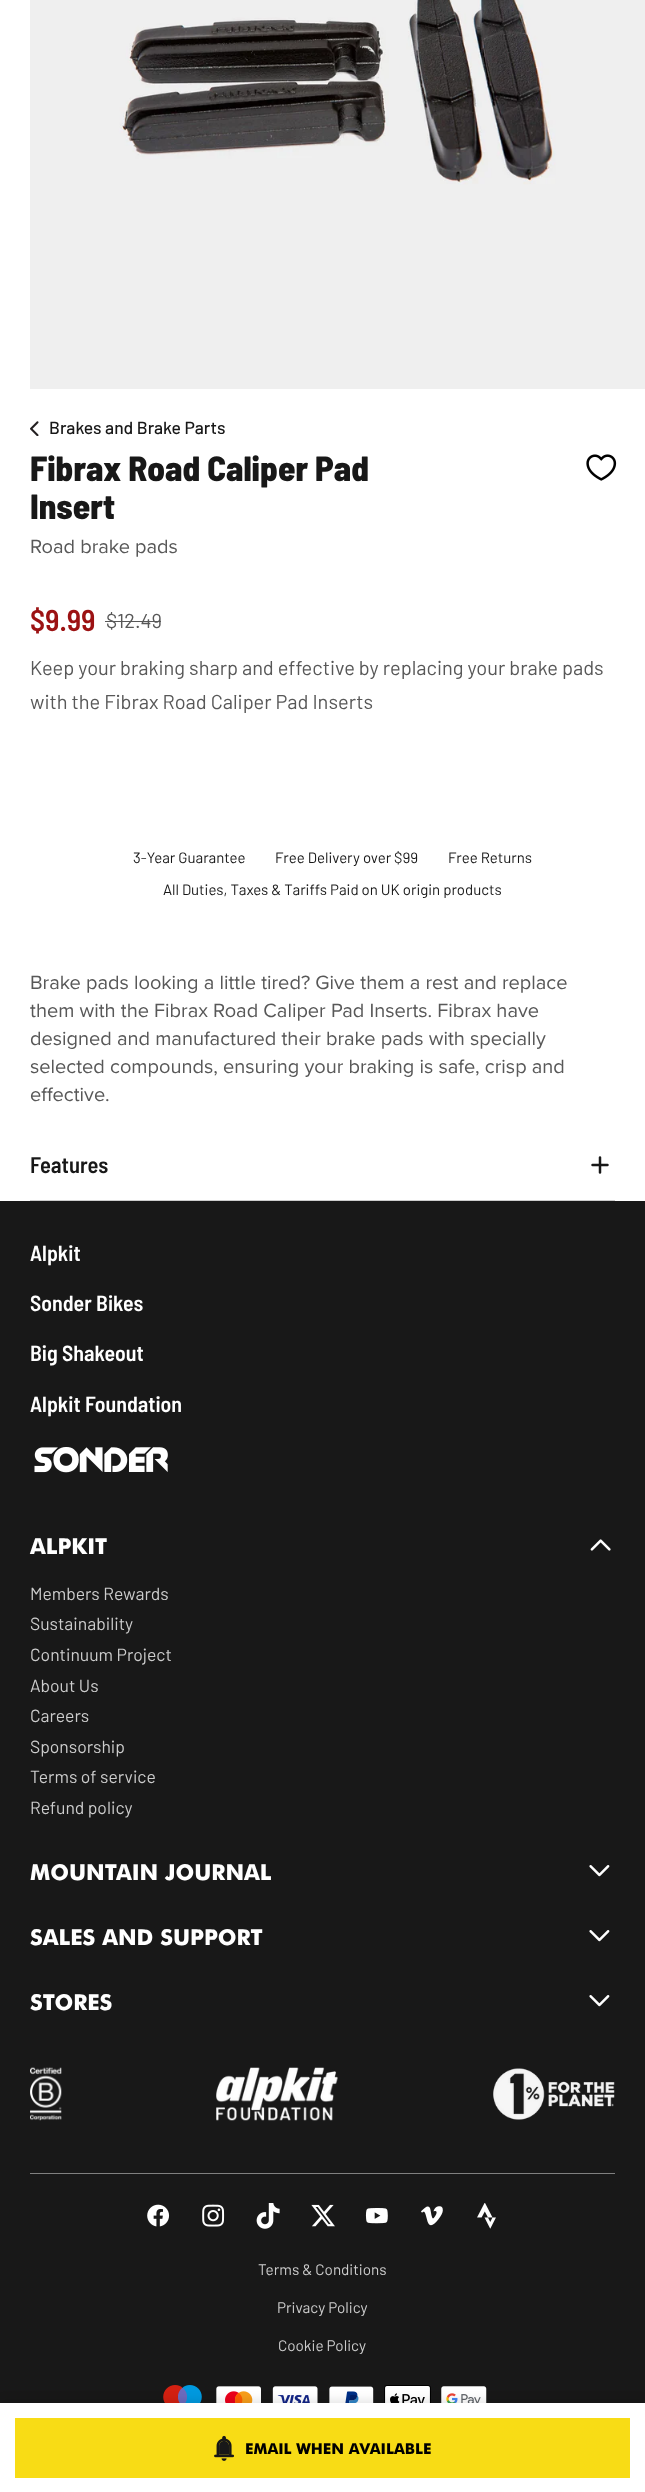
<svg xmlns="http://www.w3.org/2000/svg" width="645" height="2492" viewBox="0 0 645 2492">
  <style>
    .t1 { font: 500 17.5px Barlow; fill: #181818; }
    .t2 { font: 800 35px Barlow Semi Condensed; fill: #181818; }
    .t3 { font: 20px Proxima Nova; fill: #585858; }
    .t4 { font: 600 30px Barlow Semi Condensed; fill: #9c1213; }
    .t5 { font: 20px Barlow; fill: #585858; }
    .t6 { font: 15px Barlow; fill: #181818; }
    .t7 { font: 900 15px 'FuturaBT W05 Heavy'; fill: #000; }
    .t8 { font: 600 22.5px Barlow Semi Condensed; fill: #181818; }
    .t9 { font: 600 21.9px Barlow Semi Condensed; fill: #fff; }
    .t10 { font: 900 21.9px 'FuturaBT W05 Heavy'; fill: #fff; }
    .t11 { font: 17.5px Barlow; fill: #ccc; }
    .t12 { font: 15.25px Barlow; fill: #ccc; }
  </style>
  <rect width="100%" height="100%" fill="#fff"/>
  <image x="30" y="0" width="615" height="389" href="images/1.png"/>
  <image x="30" y="421" width="9" height="15" href="images/2.png"/>
  <text x="49" y="434" class="t1">Brakes and Brake Parts</text>
  <text x="30" y="481" class="t2">Fibrax Road Caliper Pad</text>
  <text x="30" y="519" class="t2">Insert</text>
  <image x="586" y="454" width="31" height="27" href="images/3.png"/>
  <text x="30" y="553" class="t3">Road brake pads</text>
  <text x="30" y="631" class="t4">$9.99</text>
  <text x="106" y="628" class="t5">$12.49</text>
  <rect x="105" y="621" width="56" height="1" fill="#585858"/>
  <text x="30" y="675" class="t5">Keep your braking sharp and effective by replacing your brake pads</text>
  <text x="30" y="709" class="t5">with the Fibrax Road Caliper Pad Inserts</text>
  <text x="133" y="863" class="t6">3-Year Guarantee</text>
  <text x="275" y="863" class="t6">Free Delivery over $99</text>
  <text x="448" y="863" class="t6">Free Returns</text>
  <text x="163" y="895" class="t6">All Duties, Taxes &amp; Tariffs Paid on UK origin products</text>
  <rect x="0" y="1201" width="645" height="1202" fill="#181818"/>
  <image x="163" y="2385" width="39" height="18" href="images/19.png"/>
  <image x="216" y="2386" width="45" height="17" href="images/20.png"/>
  <image x="272" y="2386" width="46" height="17" href="images/21.png"/>
  <image x="329" y="2386" width="45" height="17" href="images/22.png"/>
  <image x="384" y="2385" width="47" height="18" href="images/23.png"/>
  <image x="441" y="2386" width="46" height="17" href="images/24.png"/>
  <rect x="0" y="2400" width="645" height="90" fill="#0000001a" filter="blur(5px)"/>
  <rect x="0" y="2403" width="645" height="89" fill="#fff"/>
  <rect x="15" y="2418" width="615" height="60" fill="#f8dc15"/>
  <image x="214" y="2435" width="20" height="26" href="images/4.png"/>
  <text x="245" y="2454" class="t7">EMAIL WHEN AVAILABLE</text>
  <text x="30" y="989" class="t3">Brake pads looking a little tired? Give them a rest and replace</text>
  <text x="30" y="1017" class="t3">them with the Fibrax Road Caliper Pad Inserts. Fibrax have</text>
  <text x="30" y="1045" class="t3">designed and manufactured their brake pads with specially</text>
  <text x="30" y="1073" class="t3">selected compounds, ensuring your braking is safe, crisp and</text>
  <text x="30" y="1101" class="t3">effective.</text>
  <rect x="30" y="1200" width="585" height="1" fill="#ccc"/>
  <text x="30" y="1173" class="t8">Features</text>
  <image x="591" y="1156" width="18" height="18" href="images/5.png"/>
  <text x="30" y="1261" class="t9">Alpkit</text>
  <text x="30" y="1311" class="t9">Sonder Bikes</text>
  <text x="30" y="1361" class="t9">Big Shakeout</text>
  <text x="30" y="1412" class="t9">Alpkit Foundation</text>
  <image x="34" y="1447" width="134" height="26" href="images/6.png"/>
  <text x="30" y="1554" class="t10">ALPKIT</text>
  <image x="590" y="1539" width="21" height="12" href="images/7.png"/>
  <text x="30" y="1600" class="t11">Members Rewards</text>
  <text x="30" y="1630" class="t11">Sustainability</text>
  <text x="30" y="1661" class="t11">Continuum Project</text>
  <text x="30" y="1692" class="t11">About Us</text>
  <text x="30" y="1722" class="t11">Careers</text>
  <text x="30" y="1753" class="t11">Sponsorship</text>
  <text x="30" y="1783" class="t11">Terms of service</text>
  <text x="30" y="1814" class="t11">Refund policy</text>
  <text x="30" y="1880" class="t10">MOUNTAIN JOURNAL</text>
  <image x="589" y="1865" width="21" height="12" href="images/8.png"/>
  <text x="30" y="1945" class="t10">SALES AND SUPPORT</text>
  <image x="589" y="1930" width="21" height="12" href="images/8.png"/>
  <text x="30" y="2010" class="t10">STORES</text>
  <image x="589" y="1995" width="21" height="12" href="images/8.png"/>
  <image x="30" y="2067" width="32" height="54" href="images/9.png"/>
  <image x="216" y="2067" width="122" height="54" href="images/10.png"/>
  <image x="493" y="2068" width="122" height="52" href="images/11.png"/>
  <rect x="30" y="2173" width="585" height="1" fill="#808080"/>
  <image x="147" y="2204" width="23" height="23" href="images/12.png"/>
  <image x="202" y="2204" width="23" height="23" href="images/13.png"/>
  <image x="256" y="2203" width="24" height="26" href="images/14.png"/>
  <image x="311" y="2204" width="24" height="23" href="images/15.png"/>
  <image x="365" y="2208" width="23" height="16" href="images/16.png"/>
  <image x="421" y="2206" width="22" height="20" href="images/17.png"/>
  <image x="477" y="2203" width="19" height="26" href="images/18.png"/>
  <text x="258" y="2275" class="t12">Terms &amp; Conditions</text>
  <text x="277" y="2313" class="t12">Privacy Policy</text>
  <text x="278" y="2351" class="t12">Cookie Policy</text>
</svg>
